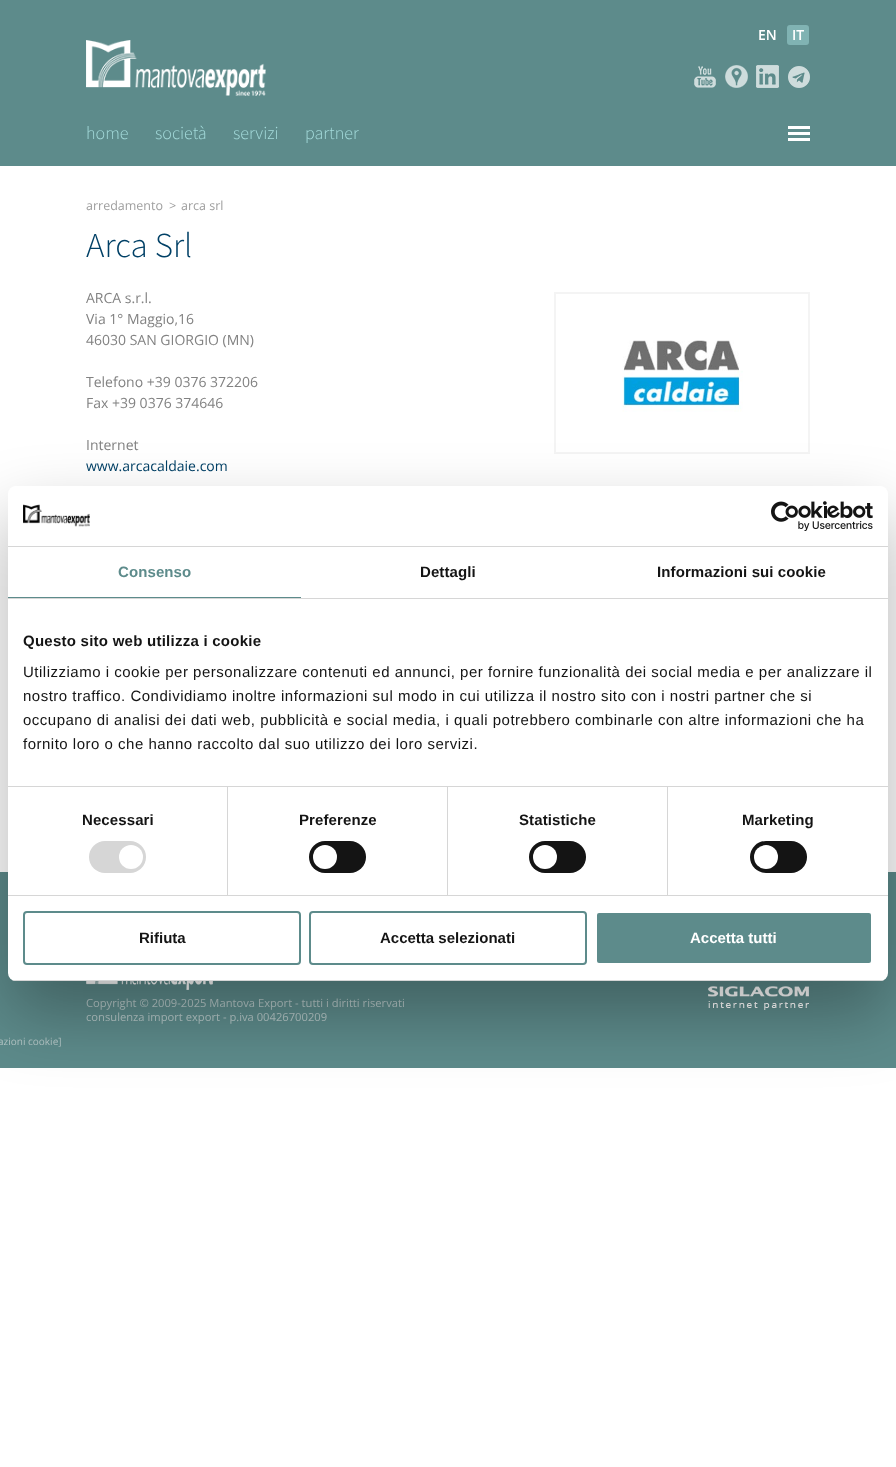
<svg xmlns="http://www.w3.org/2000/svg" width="896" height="1467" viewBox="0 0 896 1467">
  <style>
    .t1 { font: 600 14px Open Sans; fill: #fff; }
    .t2 { font: 300 18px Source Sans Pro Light; fill: #a5dcdc; }
    .t3 { font: 12.5px Open Sans; fill: #9f9f9f; }
    .t4 { font: 300 35px Source Sans Pro Light; fill: #004066; }
    .t5 { font: 14px Open Sans; fill: #828282; }
    .t6 { font: 14px Open Sans; fill: #004066; }
    .t7 { font: 11.2px Open Sans; fill: #b5c7c7; }
    .t8 { font: 10px Open Sans; fill: #b5c7c7; }
    .t9 { font: bold 15px Liberation Sans; letter-spacing: 0.1px; fill: #5d8b8b; }
    .t10 { font: bold 15px Liberation Sans; letter-spacing: 0.1px; fill: #141414; }
    .t11 { font: bold 15px Liberation Sans; letter-spacing: 0.25px; fill: #141414; }
    .t12 { font: 15px Liberation Sans; letter-spacing: 0.5px; fill: #141414; }
    .t13 { font: bold 15px Liberation Sans; fill: #141414; }
    .t14 { font: bold 15px Liberation Sans; fill: #fff; }
  </style>
  <defs>
    <clipPath id="clip1"><rect x="8" y="486" width="880" height="495" rx="8"/></clipPath>
  </defs>
  <rect width="100%" height="100%" fill="#fff"/>
  <rect x="0" y="0" width="896" height="166" fill="#5d8b8b"/>
  <text x="758" y="40" class="t1">EN</text>
  <rect x="787" y="25" width="22" height="20" rx="3" fill="#80b3b3"/>
  <text x="792" y="40" class="t1">IT</text>
  <image x="86" y="40" width="180" height="56" href="images/1.png"/>
  <image x="694" y="66" width="22" height="22" href="images/2.png"/>
  <image x="725" y="65" width="23" height="23" href="images/3.png"/>
  <image x="756" y="65" width="23" height="23" href="images/4.png"/>
  <image x="788" y="66" width="22" height="22" href="images/5.png"/>
  <text x="86" y="139" class="t2">home</text>
  <text x="155" y="139" class="t2">società</text>
  <text x="233" y="139" class="t2">servizi</text>
  <text x="305" y="139" class="t2">partner</text>
  <rect x="788" y="126" width="22" height="3" fill="#fff"/>
  <rect x="788" y="132" width="22" height="3" fill="#fff"/>
  <rect x="788" y="138" width="22" height="3" fill="#fff"/>
  <text x="86" y="210" class="t3">arredamento</text>
  <text x="169" y="210" class="t3">&gt;</text>
  <text x="181" y="210" class="t3">arca srl</text>
  <text x="86" y="257" class="t4">Arca Srl</text>
  <text x="86" y="303" class="t5">ARCA s.r.l.</text>
  <rect x="555" y="293" width="254" height="160" fill="none" stroke="#f4f4f4" stroke-width="2"/>
  <image x="622" y="340" width="121" height="72" href="images/6.png"/>
  <text x="86" y="324" class="t5">Via 1° Maggio,16</text>
  <text x="86" y="345" class="t5">46030 SAN GIORGIO (MN)</text>
  <text x="86" y="387" class="t5">Telefono +39 0376 372206</text>
  <text x="86" y="408" class="t5">Fax +39 0376 374646</text>
  <text x="86" y="450" class="t5">Internet</text>
  <text x="86" y="471" class="t6">www.arcacaldaie.com</text>
  <rect x="0" y="872" width="896" height="196" fill="#5d8b8b"/>
  <image x="86" y="981" width="127" height="9" href="images/7.png"/>
  <image x="708" y="986" width="101" height="24" href="images/8.png"/>
  <text x="86" y="1007" class="t7">Copyright © 2009-2025 Mantova Export - tutti i diritti riservati</text>
  <text x="86" y="1021" class="t7">consulenza import export - p.iva 00426700209</text>
  <text x="-2" y="1045" class="t8">azioni cookie]</text>
  <rect x="8" y="518" width="880" height="495" rx="8" fill="#0000004d" filter="blur(34px)"/>
  <rect x="8" y="486" width="880" height="495" rx="8" fill="#fff"/>
  <rect x="8" y="546" width="880" height="1" fill="#d6d6d6"/>
  <image x="23" y="504" width="67" height="23" href="images/9.png"/>
  <image x="771" y="501" width="102" height="30" href="images/10.png"/>
  <rect x="8" y="598" width="880" height="1" fill="#d6d6d6"/>
  <rect x="8" y="597" width="293" height="1" fill="#5d8b8b"/>
  <text x="118" y="577" class="t9">Consenso</text>
  <text x="420" y="577" class="t10">Dettagli</text>
  <text x="657" y="577" class="t10">Informazioni sui cookie</text>
  <rect x="8" y="786" width="880" height="1" fill="#d6d6d6"/>
  <text x="23" y="646" class="t11">Questo sito web utilizza i cookie</text>
  <text x="23" y="677" class="t12">Utilizziamo i cookie per personalizzare contenuti ed annunci, per fornire funzionalità dei social media e per analizzare il</text>
  <text x="23" y="701" class="t12">nostro traffico. Condividiamo inoltre informazioni sul modo in cui utilizza il nostro sito con i nostri partner che si</text>
  <text x="23" y="725" class="t12">occupano di analisi dei dati web, pubblicità e social media, i quali potrebbero combinarle con altre informazioni che ha</text>
  <text x="23" y="749" class="t12">fornito loro o che hanno raccolto dal suo utilizzo dei loro servizi.</text>
  <rect x="8" y="895" width="880" height="1" fill="#d6d6d6"/>
  <rect x="227" y="787" width="1" height="108" fill="#d6d6d6"/>
  <text x="82" y="825" class="t10">Necessari</text>
  <rect x="89" y="841" width="57" height="32" rx="16" fill="#d6d6d6"/>
  <circle cx="131" cy="857" r="12" fill="#fff"/>
  <rect x="447" y="787" width="1" height="108" fill="#d6d6d6"/>
  <text x="299" y="825" class="t10">Preferenze</text>
  <rect x="309" y="841" width="57" height="32" rx="16" fill="#141414"/>
  <circle cx="325" cy="857" r="12" fill="#fff"/>
  <rect x="667" y="787" width="1" height="108" fill="#d6d6d6"/>
  <text x="519" y="825" class="t10">Statistiche</text>
  <rect x="529" y="841" width="57" height="32" rx="16" fill="#141414"/>
  <circle cx="545" cy="857" r="12" fill="#fff"/>
  <text x="742" y="825" class="t10">Marketing</text>
  <rect x="750" y="841" width="57" height="32" rx="16" fill="#141414"/>
  <circle cx="766" cy="857" r="12" fill="#fff"/>
  <g clip-path="url(#clip1)">
    <rect x="8" y="980" width="880" height="1" fill="#d6d6d6"/>
  </g>
  <rect x="24" y="912" width="276" height="52" rx="3" fill="none" stroke="#5d8b8b" stroke-width="2"/>
  <text x="139" y="943" class="t13">Rifiuta</text>
  <rect x="310" y="912" width="276" height="52" rx="3" fill="none" stroke="#5d8b8b" stroke-width="2"/>
  <text x="380" y="943" class="t13">Accetta selezionati</text>
  <rect x="596" y="912" width="276" height="52" rx="3" fill="#5d8b8b" stroke="#fff" stroke-width="2"/>
  <text x="690" y="943" class="t14">Accetta tutti</text>
</svg>
